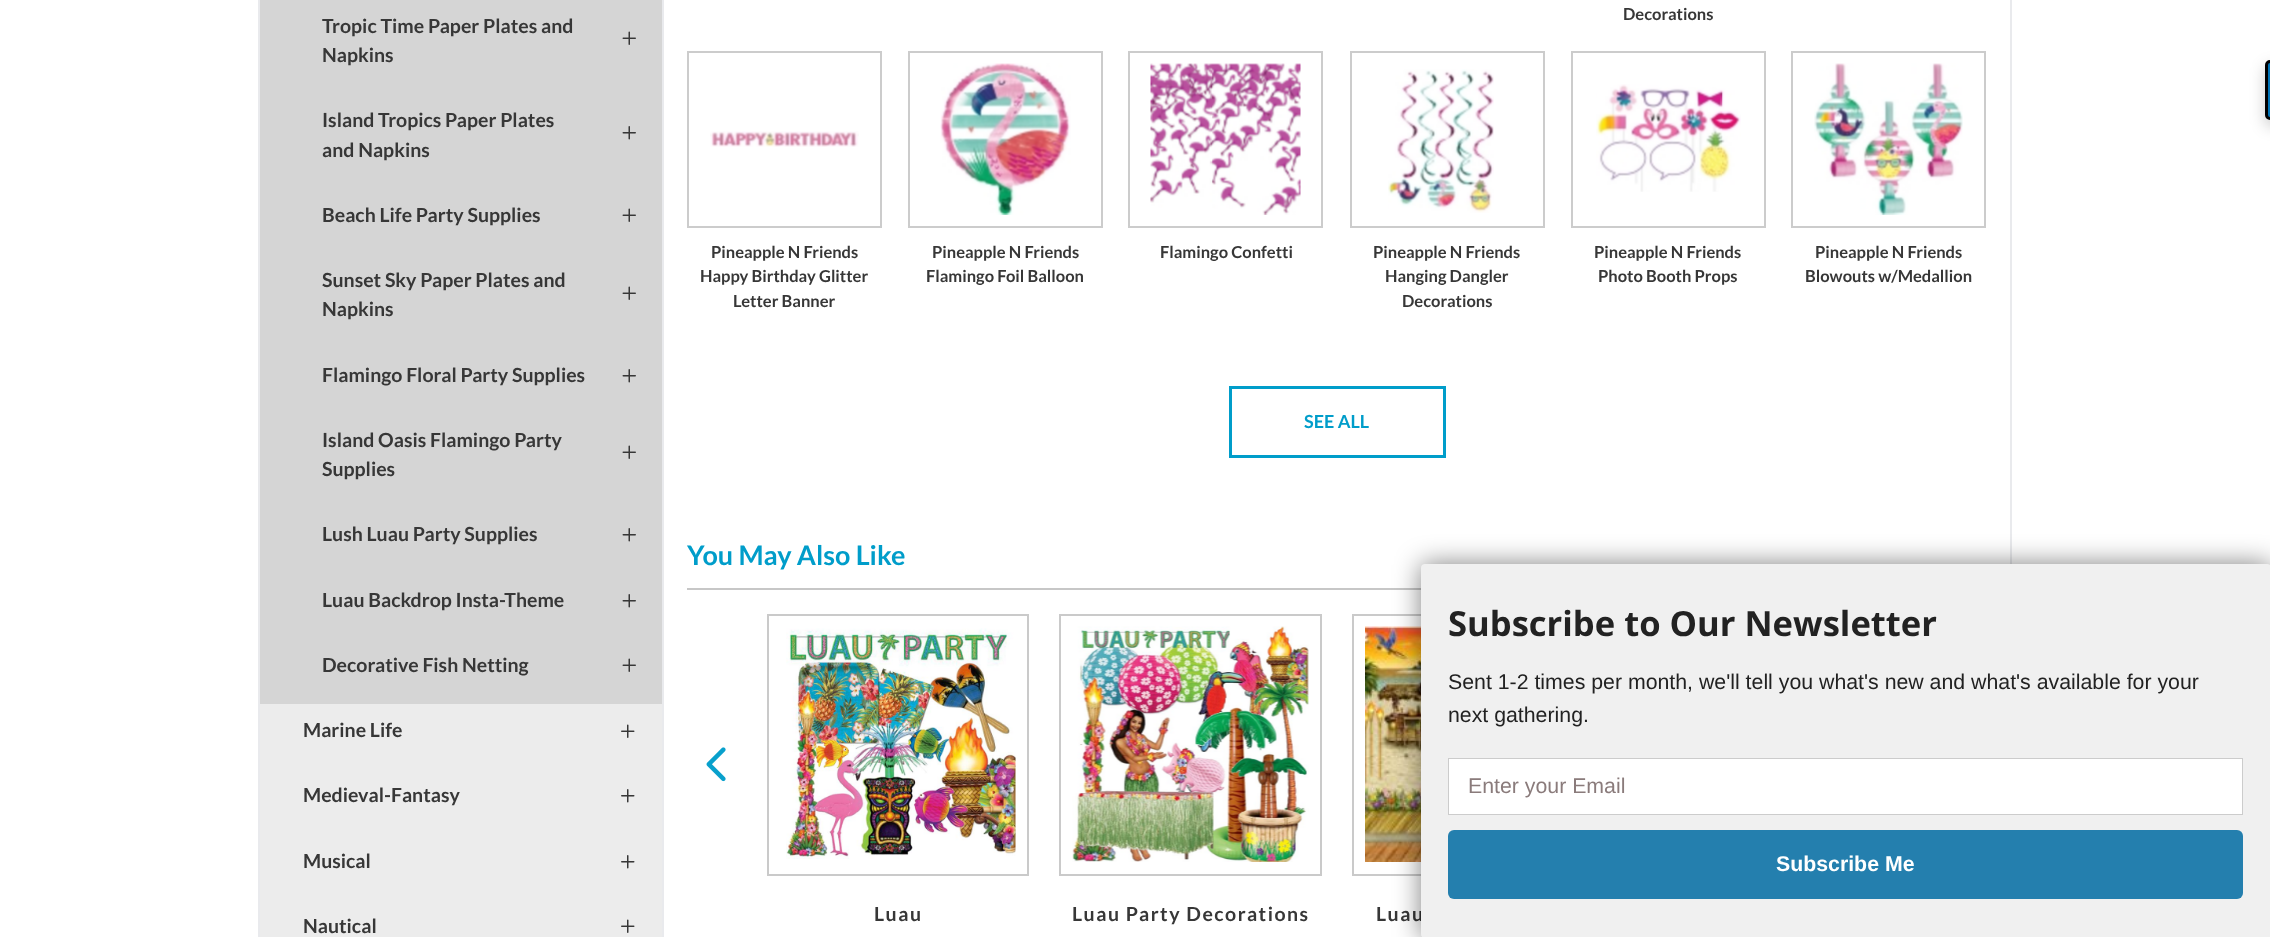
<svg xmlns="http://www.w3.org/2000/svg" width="2270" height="937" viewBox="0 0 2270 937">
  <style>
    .t1 { font: bold 19.5px Lato; fill: #373737; }
    .t2 { font: bold 16.5px Lato; fill: #373737; }
    .t3 { font: bold 18px Lato; fill: #009dca; }
    .t4 { font: bold 27px Lato; fill: #009dca; }
    .t5 { font: bold 19.5px Lato; letter-spacing: 1.5px; fill: #373737; }
    .t6 { font: bold 34.6px Open Sans; fill: #222; }
    .t7 { font: 21.3px Liberation Sans; fill: #222; }
    .t8 { font: 21.3px Liberation Sans; fill: #8a7b7b; }
    .t9 { font: bold 21.3px Liberation Sans; fill: #fff; }
  </style>
  <rect width="100%" height="100%" fill="#fff"/>
  <rect x="662" y="0" width="2" height="937" fill="#e9eaed"/>
  <rect x="258" y="0" width="2" height="937" fill="#e9eaed"/>
  <rect x="260" y="0" width="402" height="704" fill="#d5d5d5"/>
  <text x="322" y="33" class="t1">Tropic Time Paper Plates and</text>
  <image x="622" y="31" width="14" height="14" href="images/1.png"/>
  <text x="322" y="62" class="t1">Napkins</text>
  <text x="322" y="127" class="t1">Island Tropics Paper Plates</text>
  <image x="622" y="126" width="14" height="14" href="images/2.png"/>
  <text x="322" y="157" class="t1">and Napkins</text>
  <text x="322" y="222" class="t1">Beach Life Party Supplies</text>
  <image x="622" y="208" width="14" height="14" href="images/1.png"/>
  <text x="322" y="287" class="t1">Sunset Sky Paper Plates and</text>
  <image x="622" y="286" width="14" height="14" href="images/1.png"/>
  <text x="322" y="316" class="t1">Napkins</text>
  <text x="322" y="382" class="t1">Flamingo Floral Party Supplies</text>
  <image x="622" y="369" width="14" height="14" href="images/2.png"/>
  <text x="322" y="447" class="t1">Island Oasis Flamingo Party</text>
  <image x="622" y="445" width="14" height="14" href="images/1.png"/>
  <text x="322" y="476" class="t1">Supplies</text>
  <text x="322" y="541" class="t1">Lush Luau Party Supplies</text>
  <image x="622" y="528" width="14" height="14" href="images/2.png"/>
  <text x="322" y="607" class="t1">Luau Backdrop Insta-Theme</text>
  <image x="622" y="594" width="14" height="14" href="images/2.png"/>
  <text x="322" y="672" class="t1">Decorative Fish Netting</text>
  <image x="622" y="658" width="14" height="14" href="images/1.png"/>
  <rect x="260" y="704" width="402" height="233" fill="#ececec"/>
  <text x="303" y="737" class="t1">Marine Life</text>
  <image x="621" y="724" width="14" height="14" href="images/3.png"/>
  <text x="303" y="802" class="t1">Medieval-Fantasy</text>
  <image x="621" y="789" width="14" height="14" href="images/4.png"/>
  <text x="303" y="868" class="t1">Musical</text>
  <image x="621" y="855" width="14" height="14" href="images/4.png"/>
  <text x="303" y="933" class="t1">Nautical</text>
  <image x="621" y="919" width="14" height="14" href="images/3.png"/>
  <rect x="2010" y="0" width="2" height="564" fill="#e9eaed"/>
  <text x="1623" y="20" class="t2">Decorations</text>
  <rect x="688" y="52" width="193" height="175" fill="none" stroke="#ccc" stroke-width="2"/>
  <image x="710" y="131" width="149" height="16" href="images/5.png"/>
  <text x="711" y="258" class="t2">Pineapple N Friends</text>
  <text x="700" y="282" class="t2">Happy Birthday Glitter</text>
  <text x="733" y="307" class="t2">Letter Banner</text>
  <rect x="909" y="52" width="193" height="175" fill="none" stroke="#ccc" stroke-width="2"/>
  <image x="940" y="63" width="131" height="152" href="images/6.png"/>
  <text x="932" y="258" class="t2">Pineapple N Friends</text>
  <text x="926" y="282" class="t2">Flamingo Foil Balloon</text>
  <rect x="1129" y="52" width="193" height="175" fill="none" stroke="#ccc" stroke-width="2"/>
  <image x="1150" y="63" width="151" height="152" href="images/7.png"/>
  <text x="1160" y="258" class="t2">Flamingo Confetti</text>
  <rect x="1351" y="52" width="193" height="175" fill="none" stroke="#ccc" stroke-width="2"/>
  <image x="1388" y="69" width="106" height="144" href="images/8.png"/>
  <text x="1373" y="258" class="t2">Pineapple N Friends</text>
  <text x="1385" y="282" class="t2">Hanging Dangler</text>
  <text x="1402" y="307" class="t2">Decorations</text>
  <rect x="1572" y="52" width="193" height="175" fill="none" stroke="#ccc" stroke-width="2"/>
  <image x="1596" y="84" width="145" height="108" href="images/9.png"/>
  <text x="1594" y="258" class="t2">Pineapple N Friends</text>
  <text x="1598" y="282" class="t2">Photo Booth Props</text>
  <rect x="1792" y="52" width="193" height="175" fill="none" stroke="#ccc" stroke-width="2"/>
  <image x="1814" y="63" width="149" height="152" href="images/10.png"/>
  <text x="1815" y="258" class="t2">Pineapple N Friends</text>
  <text x="1805" y="282" class="t2">Blowouts w/Medallion</text>
  <rect x="1230.5" y="387.5" width="214" height="69" fill="none" stroke="#009dca" stroke-width="3"/>
  <text x="1304" y="428" class="t3">SEE ALL</text>
  <rect x="687" y="588" width="734" height="2" fill="#c7c7c7"/>
  <text x="687" y="565" class="t4">You May Also Like</text>
  <image x="706" y="747" width="20" height="35" href="images/11.png"/>
  <rect x="768" y="615" width="260" height="260" fill="none" stroke="#cacaca" stroke-width="2"/>
  <image x="786" y="628" width="230" height="231" href="images/12.png"/>
  <text x="874" y="921" class="t5">Luau</text>
  <rect x="1060" y="615" width="261" height="260" fill="none" stroke="#cacaca" stroke-width="2"/>
  <image x="1072" y="626" width="237" height="236" href="images/13.png"/>
  <text x="1072" y="921" class="t5">Luau Party Decorations</text>
  <rect x="1353" y="615" width="260" height="260" fill="none" stroke="#cacaca" stroke-width="2"/>
  <image x="1365" y="626" width="56" height="236" href="images/14.png"/>
  <text x="1376" y="921" class="t5">Luau</text>
  <rect x="2265" y="66" width="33" height="60" rx="5" fill="#00000033" filter="blur(7.5px)"/>
  <path d="M2270 61.5H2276.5V118.5H2270C2268 118.5 2266.5 117 2266.5 115V65C2266.5 63 2268 61.5 2270 61.5Z" fill="#0073b7" stroke="#000" stroke-width="3"/>
  <rect x="1421" y="564" width="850" height="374" rx="4" fill="#00000080" filter="blur(13.5px)"/>
  <rect x="1421" y="564" width="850" height="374" rx="4" fill="#f0f0f0"/>
  <text x="1448" y="636" class="t6">Subscribe to Our Newsletter</text>
  <text x="1448" y="689" class="t7">Sent 1-2 times per month, we'll tell you what's new and what's available for your</text>
  <text x="1448" y="722" class="t7">next gathering.</text>
  <rect x="1448.5" y="758.5" width="794" height="56" fill="#fff" stroke="#ccc"/>
  <text x="1468" y="793" class="t8">Enter your Email</text>
  <rect x="1448" y="830" width="795" height="69" rx="6" fill="#247fae"/>
  <text x="1776" y="871" class="t9">Subscribe Me</text>
</svg>
